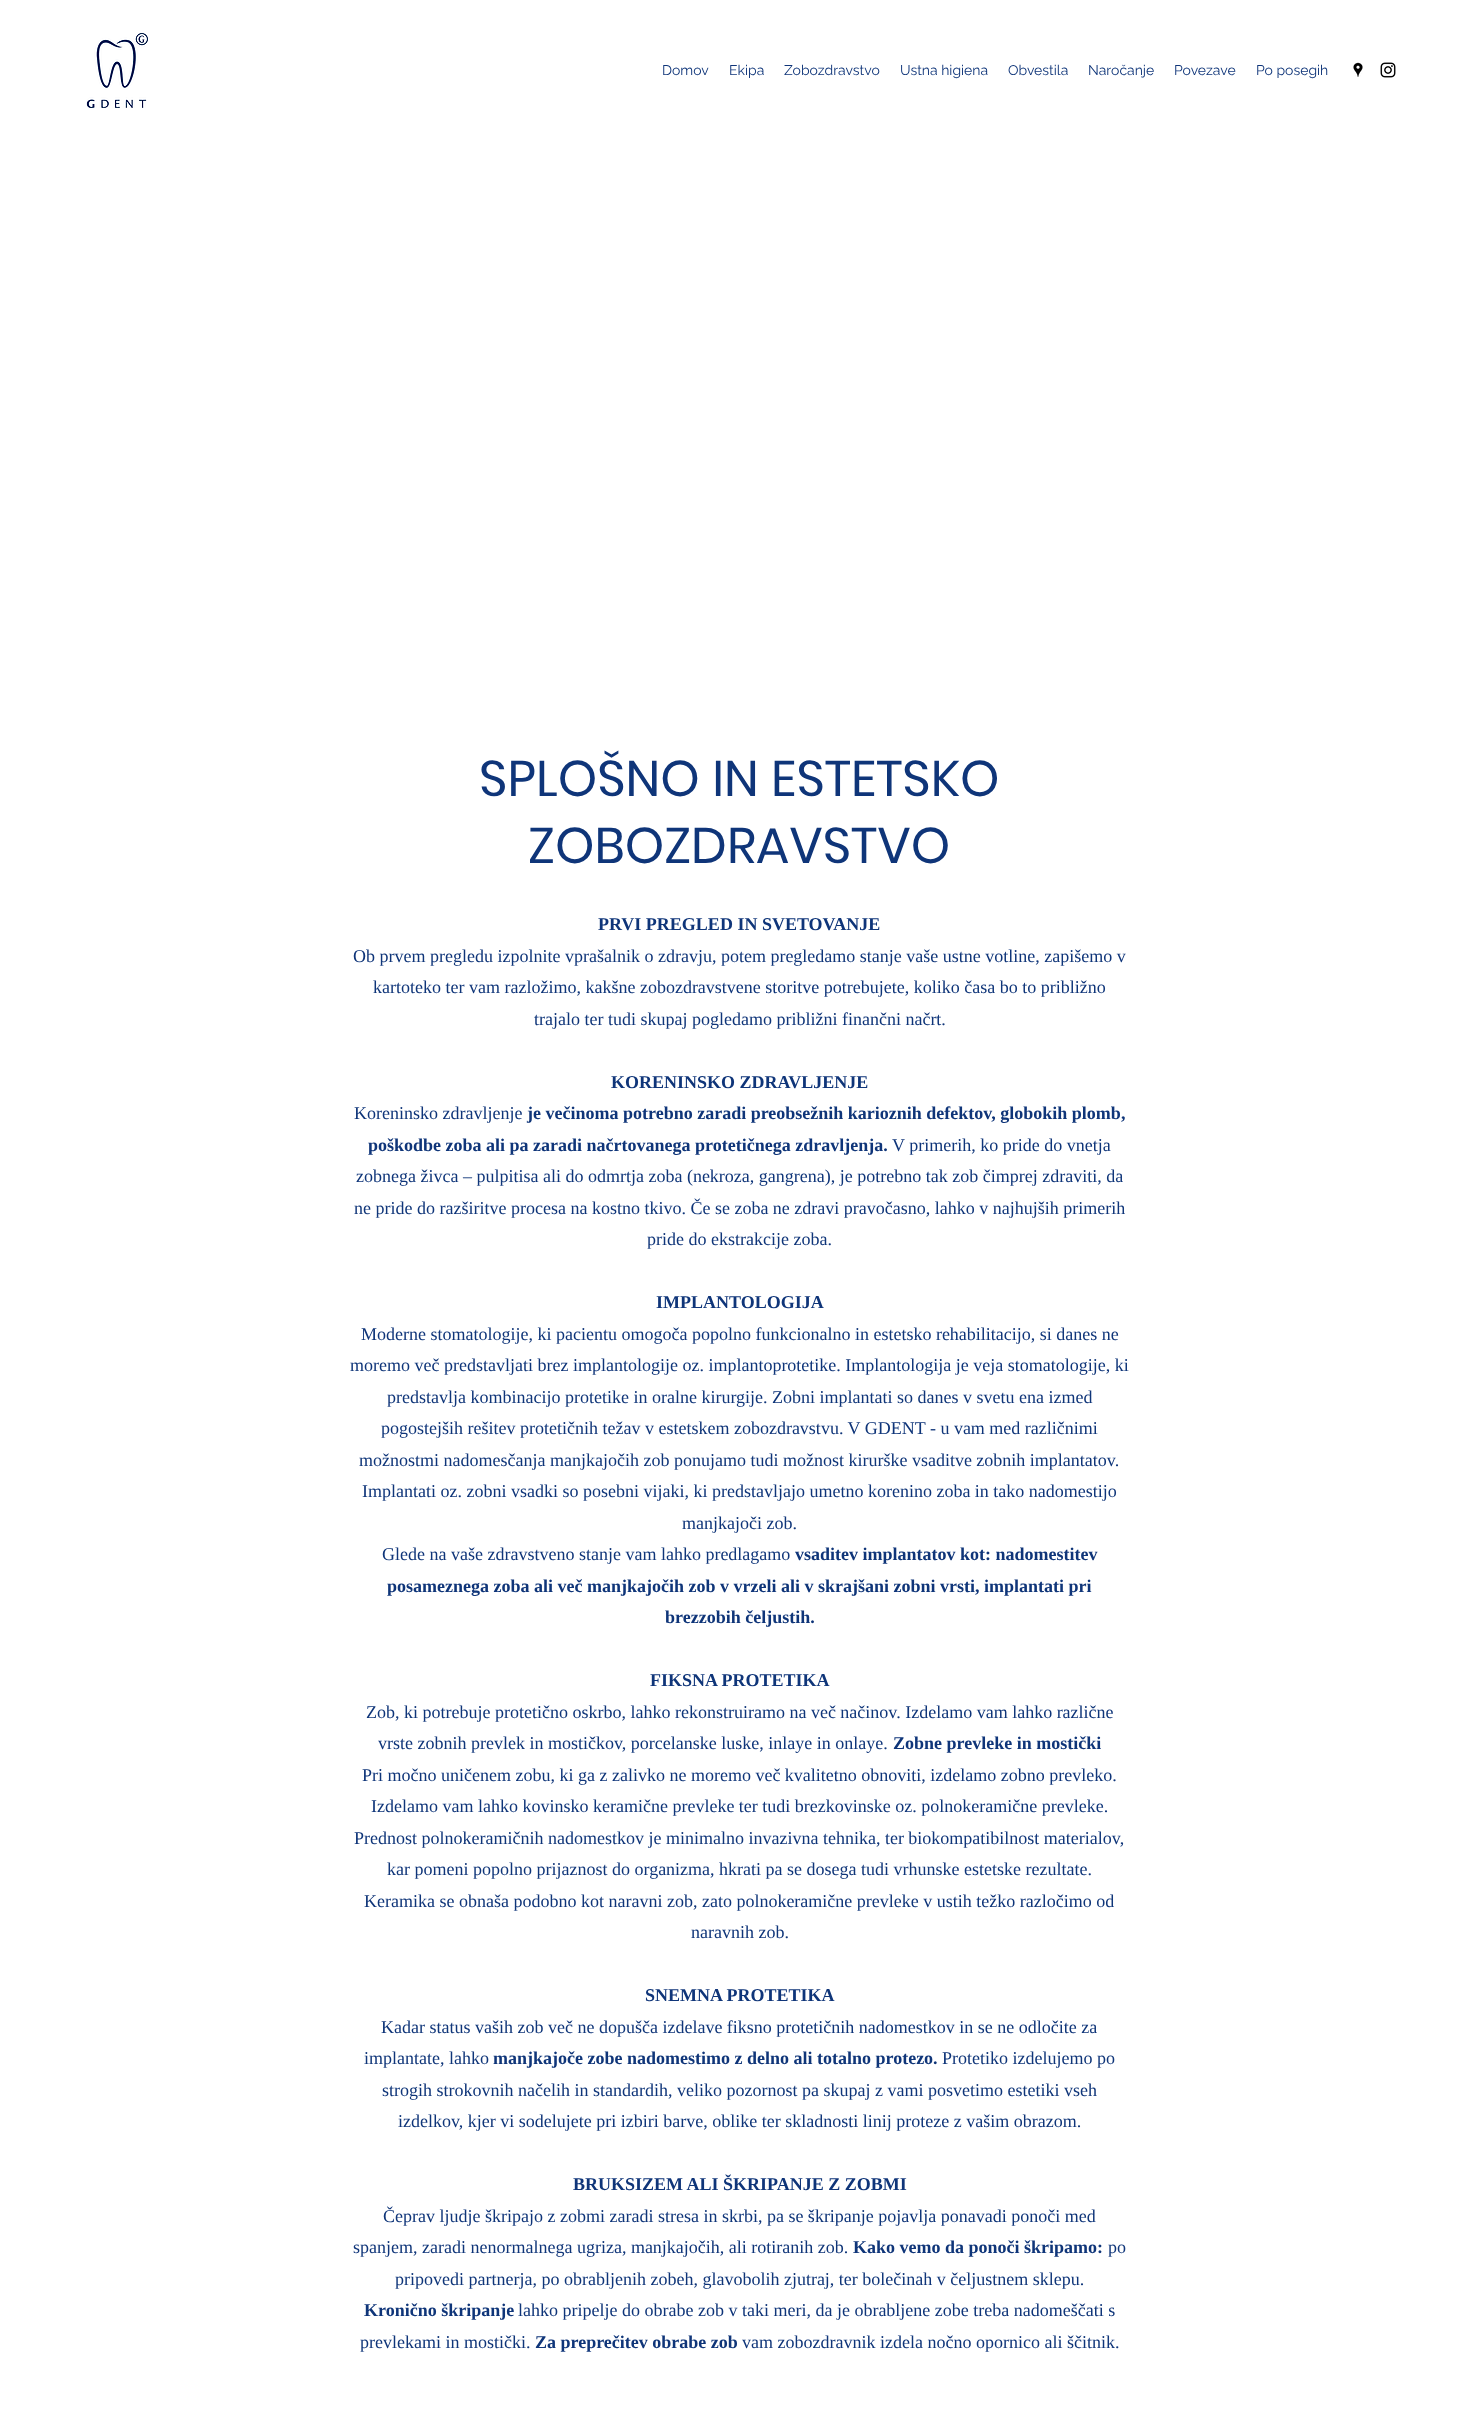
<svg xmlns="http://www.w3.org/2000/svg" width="1479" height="2429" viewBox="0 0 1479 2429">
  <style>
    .t1 { font: 14px Raleway; fill: #0f3579; }
    .t2 { font: 50px Poppins; fill: #0f3579; }
    .t3 { font: bold 18px Liberation Serif; fill: #0f3579; }
    .t4 { font: 18px Liberation Serif; fill: #0f3579; }
  </style>
  <rect width="100%" height="100%" fill="#fff"/>
  <image x="86" y="33" width="62" height="75" href="images/1.png"/>
  <text x="662" y="75" class="t1">Domov</text>
  <text x="729" y="75" class="t1">Ekipa</text>
  <text x="784" y="75" class="t1">Zobozdravstvo</text>
  <text x="900" y="75" class="t1">Ustna higiena</text>
  <text x="1008" y="75" class="t1">Obvestila</text>
  <text x="1088" y="75" class="t1">Naročanje</text>
  <text x="1174" y="75" class="t1">Povezave</text>
  <text x="1256" y="75" class="t1">Po posegih</text>
  <image x="1353" y="62" width="10" height="15" href="images/2.png"/>
  <image x="1380" y="62" width="16" height="16" href="images/3.png"/>
  <text x="479" y="796" class="t2">SPLOŠNO IN ESTETSKO</text>
  <text x="528" y="863" class="t2">ZOBOZDRAVSTVO</text>
  <text x="598" y="930" class="t3">PRVI PREGLED IN SVETOVANJE</text>
  <text x="353" y="962" class="t4">Ob prvem pregledu izpolnite vprašalnik o zdravju, potem pregledamo stanje vaše ustne votline, zapišemo v</text>
  <text x="373" y="993" class="t4">kartoteko ter vam razložimo, kakšne zobozdravstvene storitve potrebujete, koliko časa bo to približno</text>
  <text x="534" y="1025" class="t4">trajalo ter tudi skupaj pogledamo približni finančni načrt.</text>
  <text x="611" y="1088" class="t3">KORENINSKO ZDRAVLJENJE</text>
  <text x="354" y="1119" class="t4">Koreninsko zdravljenje</text>
  <text x="527" y="1119" class="t3">je večinoma potrebno zaradi preobsežnih karioznih defektov, globokih plomb,</text>
  <text x="368" y="1151" class="t3">poškodbe zoba ali pa zaradi načrtovanega protetičnega zdravljenja.</text>
  <text x="892" y="1151" class="t4">V primerih, ko pride do vnetja</text>
  <text x="356" y="1182" class="t4">zobnega živca – pulpitisa ali do odmrtja zoba (nekroza, gangrena), je potrebno tak zob čimprej zdraviti, da</text>
  <text x="354" y="1214" class="t4">ne pride do razširitve procesa na kostno tkivo. Če se zoba ne zdravi pravočasno, lahko v najhujših primerih</text>
  <text x="647" y="1245" class="t4">pride do ekstrakcije zoba.</text>
  <text x="656" y="1308" class="t3">IMPLANTOLOGIJA</text>
  <text x="361" y="1340" class="t4">Moderne stomatologije, ki pacientu omogoča popolno funkcionalno in estetsko rehabilitacijo, si danes ne</text>
  <text x="350" y="1371" class="t4">moremo več predstavljati brez implantologije oz. implantoprotetike. Implantologija je veja stomatologije, ki</text>
  <text x="387" y="1403" class="t4">predstavlja kombinacijo protetike in oralne kirurgije. Zobni implantati so danes v svetu ena izmed</text>
  <text x="381" y="1434" class="t4">pogostejših rešitev protetičnih težav v estetskem zobozdravstvu. V GDENT - u vam med različnimi</text>
  <text x="359" y="1466" class="t4">možnostmi nadomesčanja manjkajočih zob ponujamo tudi možnost kirurške vsaditve zobnih implantatov.</text>
  <text x="362" y="1497" class="t4">Implantati oz. zobni vsadki so posebni vijaki, ki predstavljajo umetno korenino zoba in tako nadomestijo</text>
  <text x="682" y="1529" class="t4">manjkajoči zob.</text>
  <text x="382" y="1560" class="t4">Glede na vaše zdravstveno stanje vam lahko predlagamo</text>
  <text x="795" y="1560" class="t3">vsaditev implantatov kot: nadomestitev</text>
  <text x="387" y="1592" class="t3">posameznega zoba ali več manjkajočih zob v vrzeli ali v skrajšani zobni vrsti, implantati pri</text>
  <text x="665" y="1623" class="t3">brezzobih čeljustih.</text>
  <text x="650" y="1686" class="t3">FIKSNA PROTETIKA</text>
  <text x="366" y="1718" class="t4">Zob, ki potrebuje protetično oskrbo, lahko rekonstruiramo na več načinov. Izdelamo vam lahko različne</text>
  <text x="378" y="1749" class="t4">vrste zobnih prevlek in mostičkov, porcelanske luske, inlaye in onlaye.</text>
  <text x="893" y="1749" class="t3">Zobne prevleke in mostički</text>
  <text x="362" y="1781" class="t4">Pri močno uničenem zobu, ki ga z zalivko ne moremo več kvalitetno obnoviti, izdelamo zobno prevleko.</text>
  <text x="371" y="1812" class="t4">Izdelamo vam lahko kovinsko keramične prevleke ter tudi brezkovinske oz. polnokeramične prevleke.</text>
  <text x="354" y="1844" class="t4">Prednost polnokeramičnih nadomestkov je minimalno invazivna tehnika, ter biokompatibilnost materialov,</text>
  <text x="387" y="1875" class="t4">kar pomeni popolno prijaznost do organizma, hkrati pa se dosega tudi vrhunske estetske rezultate.</text>
  <text x="364" y="1907" class="t4">Keramika se obnaša podobno kot naravni zob, zato polnokeramične prevleke v ustih težko razločimo od</text>
  <text x="691" y="1938" class="t4">naravnih zob.</text>
  <text x="645" y="2001" class="t3">SNEMNA PROTETIKA</text>
  <text x="381" y="2033" class="t4">Kadar status vaših zob več ne dopušča izdelave fiksno protetičnih nadomestkov in se ne odločite za</text>
  <text x="364" y="2064" class="t4">implantate, lahko</text>
  <text x="493" y="2064" class="t3">manjkajoče zobe nadomestimo z delno ali totalno protezo.</text>
  <text x="942" y="2064" class="t4">Protetiko izdelujemo po</text>
  <text x="382" y="2096" class="t4">strogih strokovnih načelih in standardih, veliko pozornost pa skupaj z vami posvetimo estetiki vseh</text>
  <text x="398" y="2127" class="t4">izdelkov, kjer vi sodelujete pri izbiri barve, oblike ter skladnosti linij proteze z vašim obrazom.</text>
  <text x="573" y="2190" class="t3">BRUKSIZEM ALI ŠKRIPANJE Z ZOBMI</text>
  <text x="383" y="2222" class="t4">Čeprav ljudje škripajo z zobmi zaradi stresa in skrbi, pa se škripanje pojavlja ponavadi ponoči med</text>
  <text x="353" y="2253" class="t4">spanjem, zaradi nenormalnega ugriza, manjkajočih, ali rotiranih zob.</text>
  <text x="853" y="2253" class="t3">Kako vemo da ponoči škripamo:</text>
  <text x="1108" y="2253" class="t4">po</text>
  <text x="395" y="2285" class="t4">pripovedi partnerja, po obrabljenih zobeh, glavobolih zjutraj, ter bolečinah v čeljustnem sklepu.</text>
  <text x="364" y="2316" class="t3">Kronično škripanje</text>
  <text x="518" y="2316" class="t4">lahko pripelje do obrabe zob v taki meri, da je obrabljene zobe treba nadomeščati s</text>
  <text x="360" y="2348" class="t4">prevlekami in mostički.</text>
  <text x="535" y="2348" class="t3">Za preprečitev obrabe zob</text>
  <text x="742" y="2348" class="t4">vam zobozdravnik izdela nočno opornico ali ščitnik.</text>
</svg>
